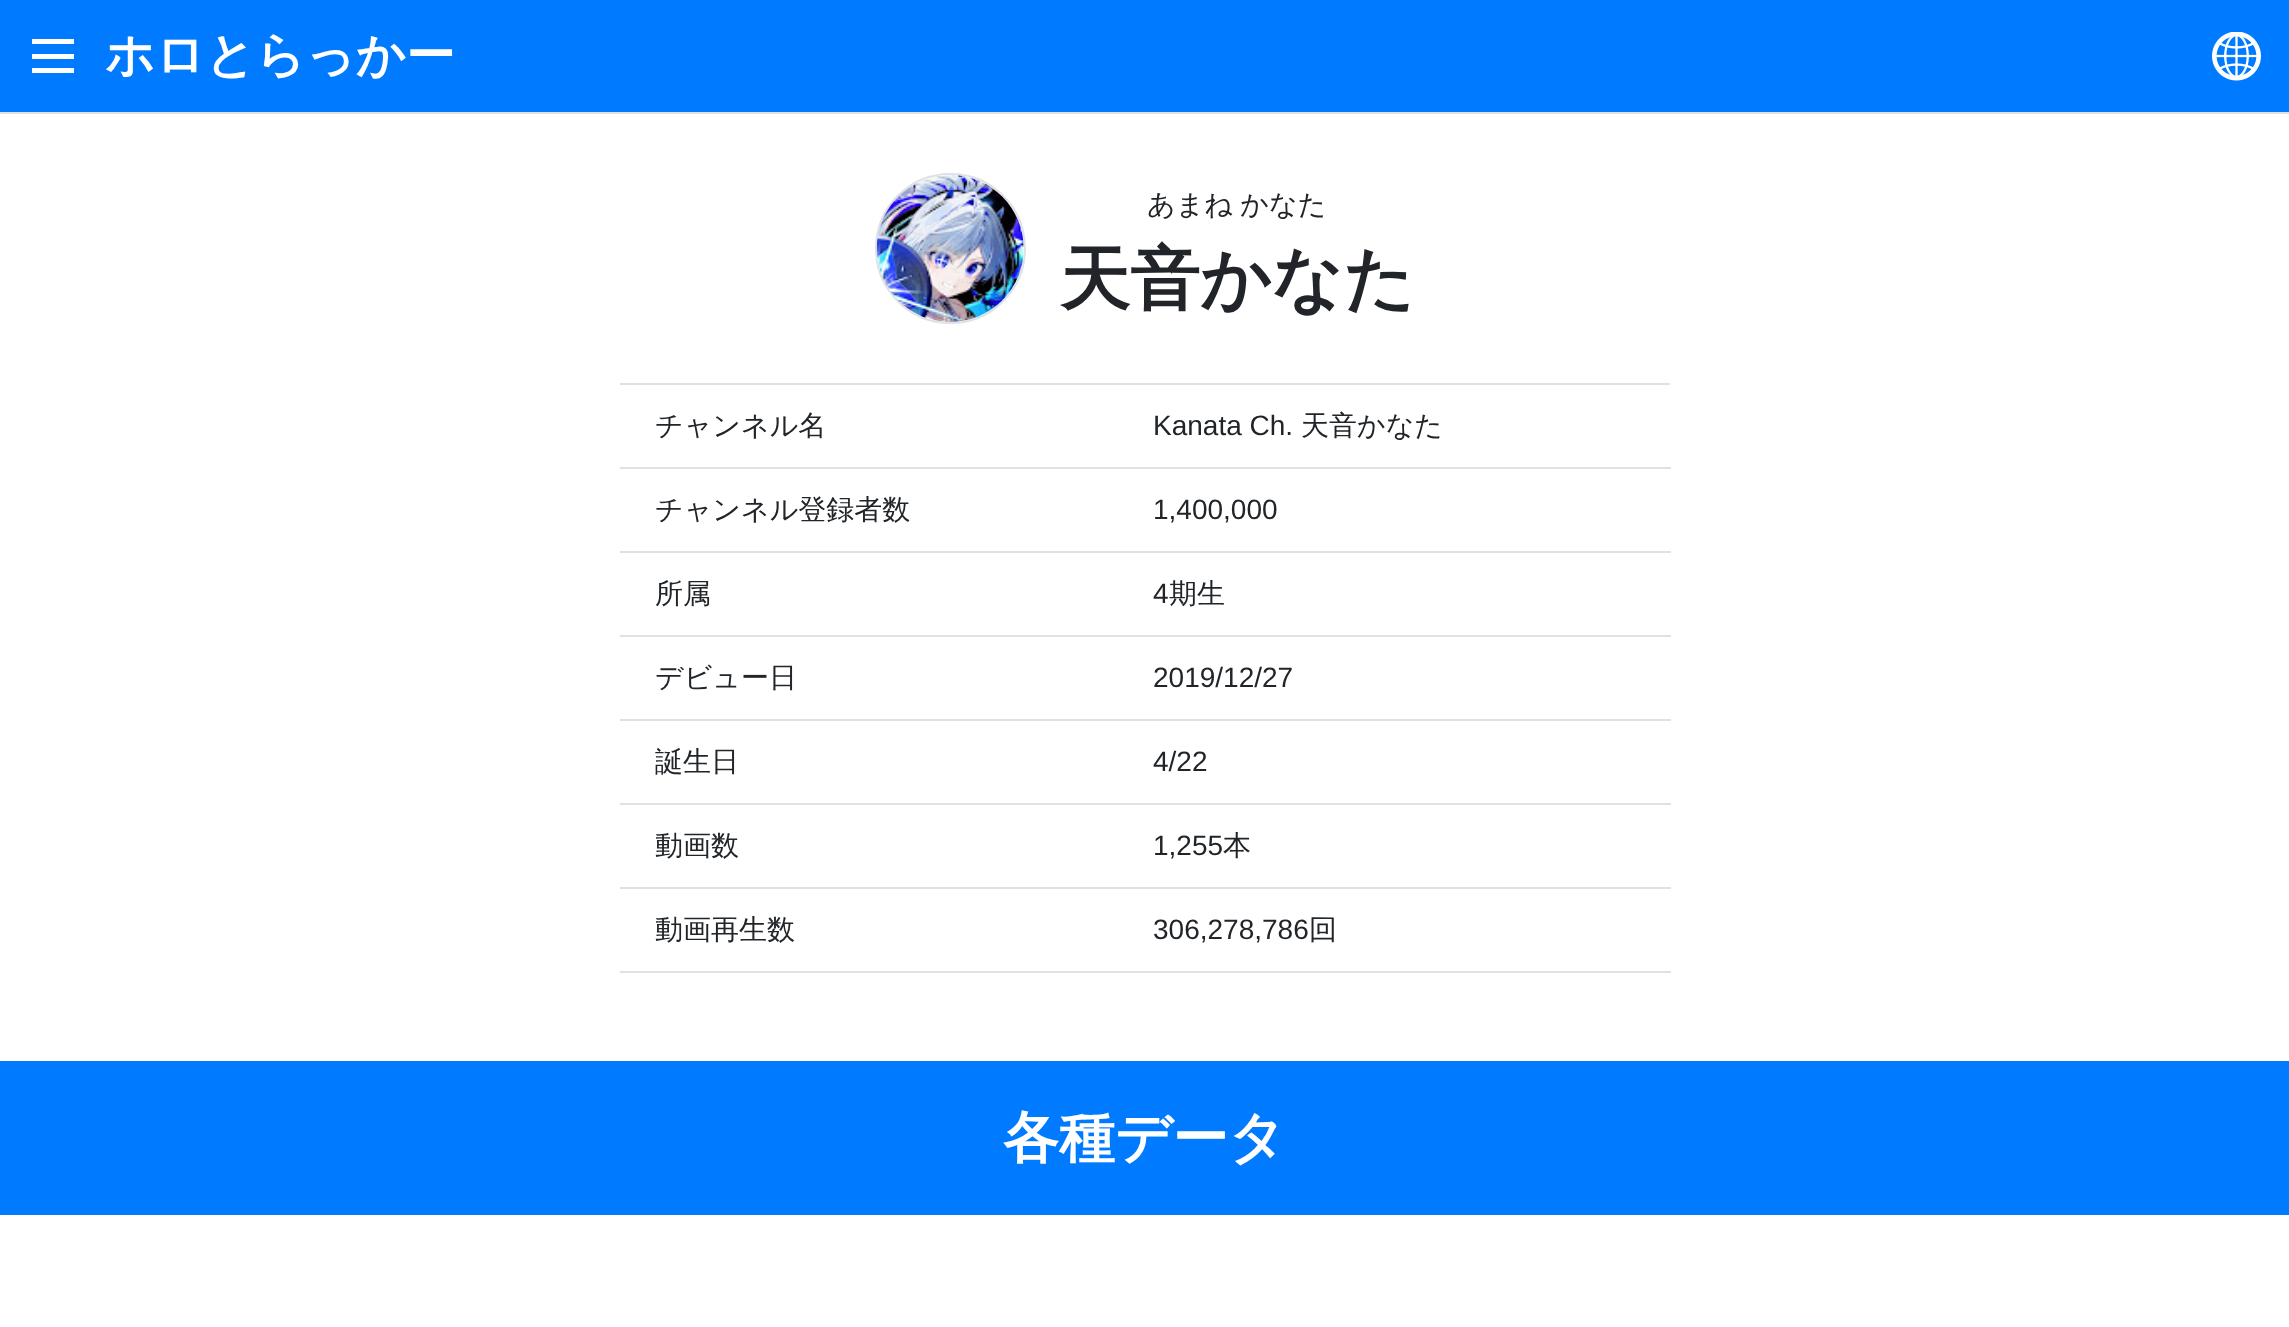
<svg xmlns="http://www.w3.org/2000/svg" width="2289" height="1327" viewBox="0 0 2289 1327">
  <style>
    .t1 { font: bold 49px WenQuanYi Zen Hei; fill: #fff; }
    .t2 { font: 500 28px WenQuanYi Zen Hei; fill: #212529; }
    .t3 { font: bold 70px WenQuanYi Zen Hei; fill: #212529; }
    .t4 { font: 28px Liberation Sans; fill: #212529; }
    .t5 { font: bold 56px WenQuanYi Zen Hei; fill: #fff; }
  </style>
  <rect width="100%" height="100%" fill="#fff"/>
  <rect x="0" y="0" width="2289" height="112" fill="#007bff"/>
  <rect x="0" y="112" width="2289" height="2" fill="#dee2e6"/>
  <rect x="32" y="39" width="42" height="5" fill="#fff"/>
  <rect x="32" y="54" width="42" height="5" fill="#fff"/>
  <rect x="32" y="68" width="42" height="5" fill="#fff"/>
  <text x="105" y="72" class="t1">ホロとらっかー</text>
  <image x="2212" y="32" width="49" height="49" href="images/1.png"/>
  <circle cx="950.5" cy="248.5" r="74.5" fill="none" stroke="#dee2e6" stroke-width="2"/>
  <image x="876" y="175" width="148" height="147" href="images/2.png"/>
  <text x="1147" y="214" word-spacing="-1" class="t2">あまね かなた</text>
  <text x="1060" y="303" class="t3">天音かなた</text>
  <rect x="620" y="383" width="1050" height="2" fill="#dee2e6"/>
  <text x="655" y="435" class="t2">チャンネル名</text>
  <rect x="620" y="467" width="1051" height="2" fill="#dee2e6"/>
  <text x="1153" y="435" class="t4">Kanata Ch.</text>
  <text x="1301" y="435" class="t2">天音かなた</text>
  <text x="655" y="519" class="t2">チャンネル登録者数</text>
  <rect x="620" y="551" width="1051" height="2" fill="#dee2e6"/>
  <text x="1153" y="519" class="t4">1,400,000</text>
  <text x="655" y="603" class="t2">所属</text>
  <rect x="620" y="635" width="1051" height="2" fill="#dee2e6"/>
  <text x="1153" y="603" class="t4">4</text>
  <text x="1169" y="603" class="t2">期生</text>
  <text x="655" y="687" class="t2">デビュー日</text>
  <rect x="620" y="719" width="1051" height="2" fill="#dee2e6"/>
  <text x="1153" y="687" class="t4">2019/12/27</text>
  <text x="655" y="771" class="t2">誕生日</text>
  <rect x="620" y="803" width="1051" height="2" fill="#dee2e6"/>
  <text x="1153" y="771" class="t4">4/22</text>
  <text x="655" y="855" class="t2">動画数</text>
  <rect x="620" y="887" width="1051" height="2" fill="#dee2e6"/>
  <text x="1153" y="855" class="t4">1,255</text>
  <text x="1223" y="855" class="t2">本</text>
  <text x="655" y="939" class="t2">動画再生数</text>
  <rect x="620" y="971" width="1051" height="2" fill="#dee2e6"/>
  <text x="1153" y="939" class="t4">306,278,786</text>
  <text x="1309" y="939" class="t2">回</text>
  <rect x="0" y="1061" width="2289" height="154" fill="#007bff"/>
  <text x="1003" y="1157" class="t5">各種データ</text>
</svg>
